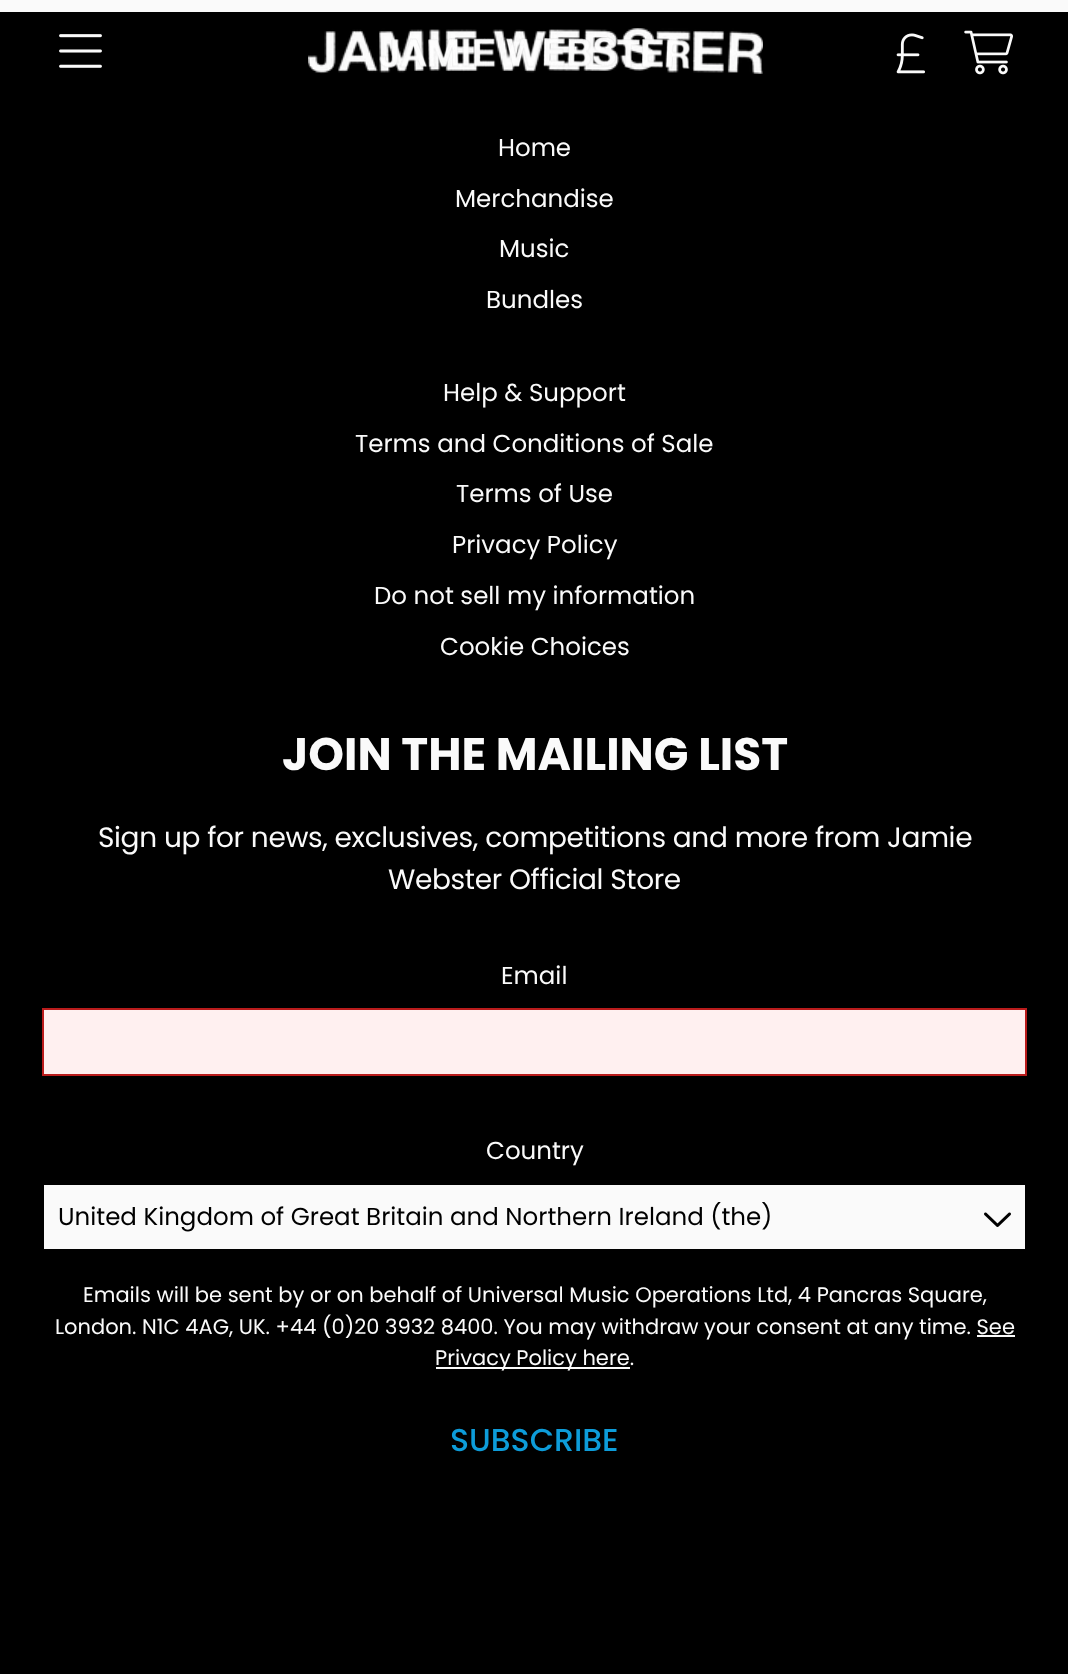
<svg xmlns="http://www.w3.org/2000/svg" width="1068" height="1674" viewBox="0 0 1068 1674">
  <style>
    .t1 { font: 24.5px Poppins; fill: #fafafa; }
    .t2 { font: bold 45.5px Poppins; fill: #fafafa; }
    .t3 { font: 28px Poppins; letter-spacing: -0.35px; fill: #fafafa; }
    .t4 { font: 24.5px Poppins; fill: #000; }
    .t5 { font: 21px Poppins; fill: #fafafa; }
    .t6 { font: 500 31.5px Poppins; fill: #0d9cd9; }
  </style>
  <rect width="100%" height="100%" fill="#fafafa"/>
  <rect x="0" y="12" width="1068" height="1662" fill="#000"/>
  <image x="59" y="34" width="43" height="34" href="images/1.png"/>
  <image x="308" y="28" width="455" height="46" href="images/5.png"/>
  <image x="379" y="37" width="311" height="32" href="images/2.png"/>
  <image x="896" y="33" width="29" height="41" href="images/3.png"/>
  <image x="964" y="30" width="49" height="45" href="images/4.png"/>
  <text x="498" y="156" class="t1">Home</text>
  <text x="455" y="207" class="t1">Merchandise</text>
  <text x="499" y="257" class="t1">Music</text>
  <text x="486" y="308" class="t1">Bundles</text>
  <text x="443" y="401" class="t1">Help &amp; Support</text>
  <text x="355" y="452" class="t1">Terms and Conditions of Sale</text>
  <text x="456" y="502" class="t1">Terms of Use</text>
  <text x="452" y="553" class="t1">Privacy Policy</text>
  <text x="374" y="604" class="t1">Do not sell my information</text>
  <text x="440" y="655" class="t1">Cookie Choices</text>
  <text x="282" y="770" class="t2">JOIN THE MAILING LIST</text>
  <text x="98" y="847" class="t3">Sign up for news, exclusives, competitions and more from Jamie</text>
  <text x="388" y="889" class="t3">Webster Official Store</text>
  <text x="501" y="984" class="t1">Email</text>
  <rect x="43" y="1009" width="983" height="66" fill="#fff0f0" stroke="#ba1c1c" stroke-width="2"/>
  <text x="486" y="1159" class="t1">Country</text>
  <rect x="44" y="1185" width="981" height="64" fill="#fafafa"/>
  <text x="58" y="1225" class="t4">United Kingdom of Great Britain and Northern Ireland (the)</text>
  <image x="984" y="1212" width="27" height="15" href="images/6.png"/>
  <text x="83" y="1302" class="t5">Emails will be sent by or on behalf of Universal Music Operations Ltd, 4 Pancras Square,</text>
  <text x="55" y="1334" class="t5">London. N1C 4AG, UK. +44 (0)20 3932 8400. You may withdraw your consent at any time. See</text>
  <rect x="436" y="1367" width="194" height="2" fill="#fafafa"/>
  <text x="435" y="1365" class="t5">Privacy Policy here.</text>
  <rect x="977" y="1335" width="38" height="2" fill="#fafafa"/>
  <text x="450" y="1451" class="t6">SUBSCRIBE</text>
</svg>
